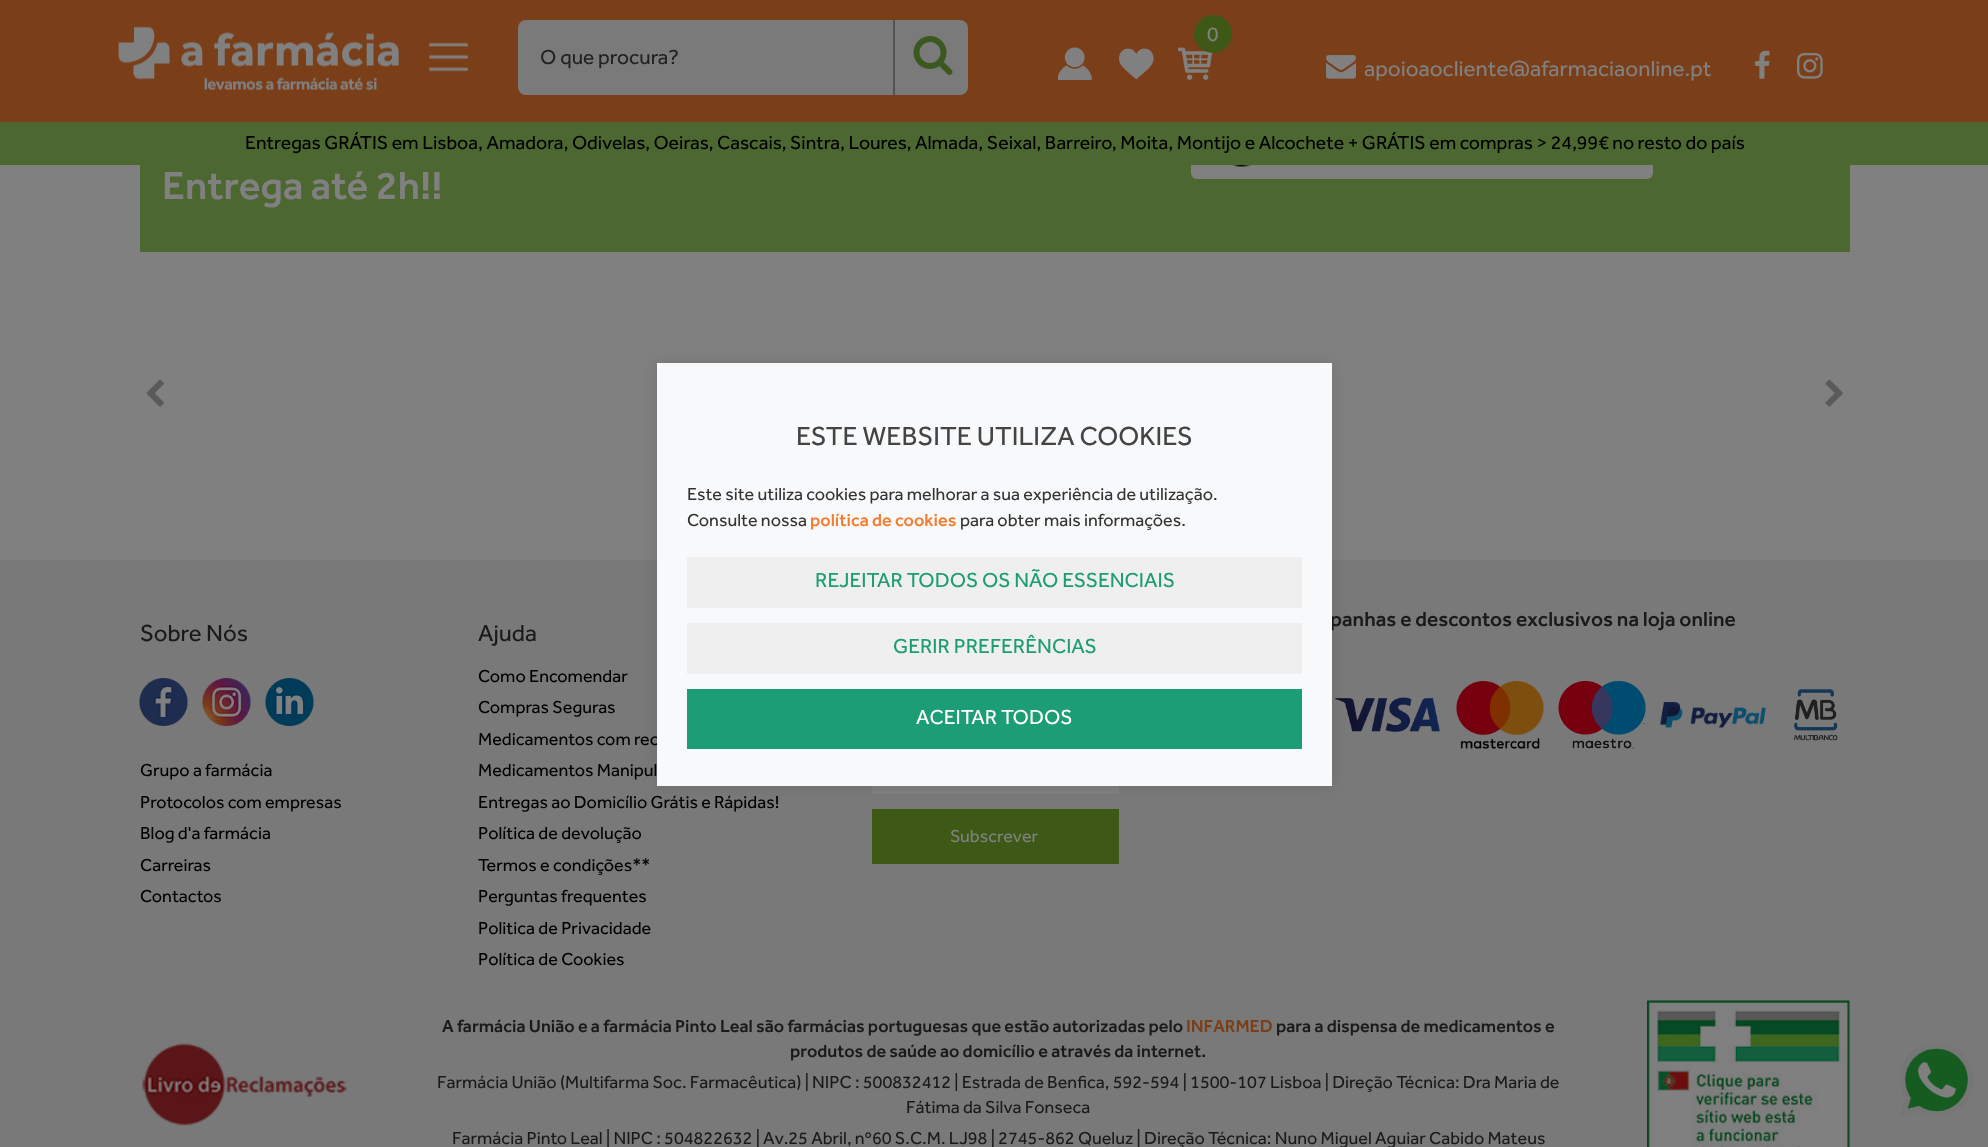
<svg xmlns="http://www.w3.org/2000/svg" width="1988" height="1147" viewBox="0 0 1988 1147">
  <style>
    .t1 { font: 21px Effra; fill: #808080; }
    .t2 { font: 21px Effra; fill: #222; }
    .t3 { font: 22.5px Effra; fill: #808080; }
    .t4 { font: 19.5px Effra; fill: #000; }
    .t5 { font: 500 40.5px Effra; fill: #808080; }
    .t6 { font: 500 21px Effra; fill: #1a1a1a; }
    .t7 { font: 18px Effra; fill: #000; }
    .t8 { font: 27px Effra; fill: #444; }
    .t9 { font: 18px Effra; fill: #333; }
    .t10 { font: 500 18px Effra; fill: #f47d31; }
    .t11 { font: 21px Effra; fill: #1d9d74; }
    .t12 { font: 21px Effra; fill: #fff; }
    .t13 { font: 24px Effra; fill: #1a1a1a; }
    .t14 { font: 18px Effra; fill: #808080; }
    .t15 { font: 500 18px Effra; fill: #1a1a1a; }
    .t16 { font: 500 18px Effra; fill: #7a3f19; }
    .t17 { font: 18px Effra; fill: #1a1a1a; }
  </style>
  <rect width="100%" height="100%" fill="#808080"/>
  <rect x="140" y="165" width="1710" height="87" fill="#4d6730"/>
  <rect x="1191" y="59" width="462" height="120" rx="6" fill="#808080"/>
  <rect x="0" y="0" width="1988" height="122" fill="#7a3f19"/>
  <image x="118" y="26" width="281" height="65" href="images/1.png"/>
  <image x="429" y="42" width="39" height="30" href="images/2.png"/>
  <image x="1178" y="47" width="34" height="33" href="images/3.png"/>
  <circle cx="1213" cy="34" r="19" fill="#3e5916"/>
  <text x="1207" y="41" class="t1">0</text>
  <image x="1058" y="47" width="34" height="33" href="images/4.png"/>
  <image x="1119" y="48" width="35" height="32" href="images/5.png"/>
  <rect x="518" y="20" width="450" height="75" rx="8" fill="#7a7a7a"/>
  <text x="540" y="64" class="t2">O que procura?</text>
  <rect x="893" y="20" width="2" height="75" fill="#535353"/>
  <image x="913" y="36" width="40" height="39" href="images/6.png"/>
  <image x="1326" y="55" width="30" height="24" href="images/7.png"/>
  <text x="1364" y="76" class="t3">apoioaocliente@afarmaciaonline.pt</text>
  <image x="1755" y="50" width="15" height="29" href="images/8.png"/>
  <image x="1797" y="52" width="26" height="27" href="images/9.png"/>
  <rect x="0" y="122" width="1988" height="43" fill="#4d6730"/>
  <text x="245" y="149" class="t4">Entregas GRÁTIS em Lisboa, Amadora, Odivelas, Oeiras, Cascais, Sintra, Loures, Almada, Seixal, Barreiro, Moita, Montijo e Alcochete + GRÁTIS em compras &gt; 24,99€ no resto do país</text>
  <image x="1231" y="165" width="21" height="2" href="images/10.png"/>
  <text x="162" y="199" class="t5">Entrega até 2h!!</text>
  <image x="146" y="379" width="18" height="28" href="images/11.png"/>
  <image x="1825" y="379" width="18" height="28" href="images/12.png"/>
  <rect x="0" y="560" width="1988" height="587" fill="#797979"/>
  <image x="1335" y="697" width="105" height="35" href="images/13.png"/>
  <rect x="872" y="786" width="247" height="8" fill="#808080"/>
  <rect x="872" y="809" width="247" height="55" fill="#3e5916"/>
  <rect x="657" y="363" width="675" height="423" fill="#0000001a" filter="blur(7.5px)"/>
  <text x="1330" y="626" class="t6">panhas e descontos exclusivos na loja online</text>
  <text x="478" y="745" class="t7">Medicamentos com rec</text>
  <rect x="657" y="363" width="675" height="423" fill="#f8f9fa"/>
  <text x="796" y="445" class="t8">ESTE WEBSITE UTILIZA COOKIES</text>
  <text x="687" y="500" class="t9">Este site utiliza cookies para melhorar a sua experiência de utilização.</text>
  <text x="687" y="526" class="t9">Consulte nossa</text>
  <text x="810" y="526" class="t10">política de cookies</text>
  <text x="960" y="526" class="t9">para obter mais informações.</text>
  <rect x="687" y="557" width="615" height="51" fill="#efefef"/>
  <text x="815" y="587" class="t11">REJEITAR TODOS OS NÃO ESSENCIAIS</text>
  <rect x="687" y="623" width="615" height="51" fill="#efefef"/>
  <text x="893" y="653" class="t11">GERIR PREFERÊNCIAS</text>
  <rect x="687" y="689" width="615" height="60" fill="#1d9d74"/>
  <text x="916" y="724" class="t12">ACEITAR TODOS</text>
  <image x="1456" y="681" width="88" height="68" href="images/14.png"/>
  <image x="1558" y="681" width="88" height="68" href="images/15.png"/>
  <image x="1660" y="702" width="106" height="26" href="images/16.png"/>
  <image x="1794" y="689" width="44" height="52" href="images/17.png"/>
  <text x="140" y="641" class="t13">Sobre Nós</text>
  <image x="139" y="678" width="49" height="48" href="images/18.png"/>
  <image x="202" y="678" width="49" height="48" href="images/19.png"/>
  <image x="265" y="678" width="49" height="48" href="images/20.png"/>
  <text x="140" y="776" class="t7">Grupo a farmácia</text>
  <text x="140" y="808" class="t7">Protocolos com empresas</text>
  <text x="140" y="839" class="t7">Blog d'a farmácia</text>
  <text x="140" y="871" class="t7">Carreiras</text>
  <text x="140" y="902" class="t7">Contactos</text>
  <text x="478" y="641" class="t13">Ajuda</text>
  <text x="478" y="682" class="t7">Como Encomendar</text>
  <text x="478" y="713" class="t7">Compras Seguras</text>
  <text x="478" y="776" class="t7">Medicamentos Manipul</text>
  <text x="478" y="808" class="t7">Entregas ao Domicílio Grátis e Rápidas!</text>
  <text x="478" y="839" class="t7">Política de devolução</text>
  <text x="478" y="871" class="t7">Termos e condições**</text>
  <text x="478" y="902" class="t7">Perguntas frequentes</text>
  <text x="478" y="934" class="t7">Politica de Privacidade</text>
  <text x="478" y="965" class="t7">Política de Cookies</text>
  <text x="950" y="842" class="t14">Subscrever</text>
  <image x="142" y="1043" width="205" height="83" href="images/21.png"/>
  <text x="442" y="1032" class="t15">A farmácia União e a farmácia Pinto Leal são farmácias portuguesas que estão autorizadas pelo</text>
  <text x="1186" y="1032" class="t16">INFARMED</text>
  <text x="1276" y="1032" class="t15">para a dispensa de medicamentos e</text>
  <text x="790" y="1057" class="t15">produtos de saúde ao domicílio e através da internet.</text>
  <text x="437" y="1088" class="t17">Farmácia União (Multifarma Soc. Farmacêutica) | NIPC : 500832412 | Estrada de Benfica, 592-594 | 1500-107 Lisboa | Direção Técnica: Dra Maria de</text>
  <text x="906" y="1113" class="t17">Fátima da Silva Fonseca</text>
  <text x="452" y="1144" class="t17">Farmácia Pinto Leal | NIPC : 504822632 | Av.25 Abril, nº60 S.C.M. LJ98 | 2745-862 Queluz | Direção Técnica: Nuno Miguel Aguiar Cabido Mateus</text>
  <image x="1647" y="1000" width="203" height="147" href="images/22.png"/>
  <image x="1899" y="1043" width="75" height="74" href="images/23.png"/>
</svg>
